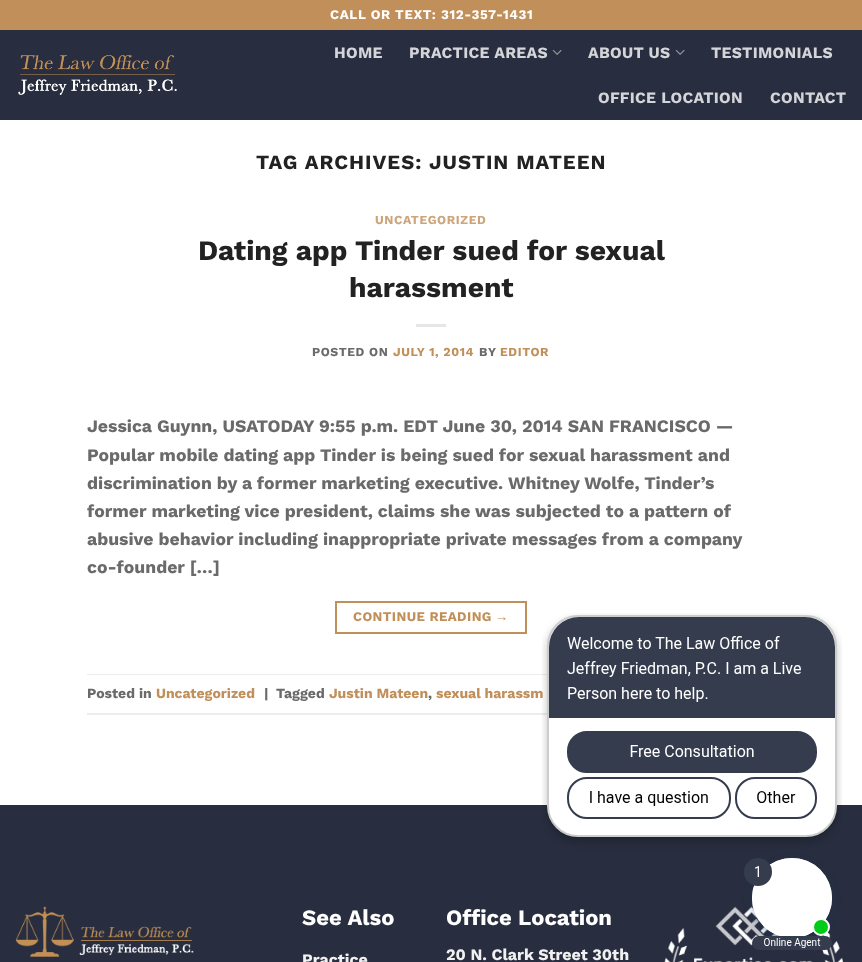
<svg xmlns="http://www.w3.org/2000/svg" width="862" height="962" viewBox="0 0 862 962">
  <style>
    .t1 { font: bold 13.25px Work Sans; letter-spacing: 0.65px; fill: #fff; }
    .t2 { font: bold 15.75px Work Sans; letter-spacing: 0.3px; fill: #d4d5d9; }
    .t3 { font: bold 20.25px Work Sans; letter-spacing: 1px; fill: #222; }
    .t4 { font: bold 12.25px Work Sans; letter-spacing: 0.6px; fill: #cda57a; }
    .t5 { font: bold 28.2px Work Sans; fill: #222; }
    .t6 { font: bold 12.25px Work Sans; letter-spacing: 0.6px; fill: #6a6a6a; }
    .t7 { font: bold 12.25px Work Sans; letter-spacing: 0.6px; fill: #c18f59; }
    .t8 { font: bold 17.6px Work Sans; fill: #6a6a6a; }
    .t9 { font: bold 13.25px Work Sans; letter-spacing: 0.4px; fill: #c18f59; }
    .t10 { font: bold 13.25px Liberation Sans; letter-spacing: 0.4px; fill: #c18f59; }
    .t11 { font: bold 14px Work Sans; fill: #6a6a6a; }
    .t12 { font: bold 14px Work Sans; fill: #c18f59; }
    .t13 { font: bold 22px Work Sans; fill: #fff; }
    .t14 { font: bold 16px Work Sans; fill: #f1f1f1; }
  </style>
  <rect width="100%" height="100%" fill="#fff"/>
  <rect x="0" y="0" width="862" height="30" fill="#c18f59"/>
  <text x="330" y="19" class="t1">CALL OR TEXT: 312-357-1431</text>
  <rect x="0" y="30" width="862" height="90" fill="#282e3f"/>
  <image x="18" y="55" width="159" height="40" href="images/1.png"/>
  <text x="334" y="58" class="t2">HOME</text>
  <text x="409" y="58" class="t2">PRACTICE AREAS</text>
  <image x="552" y="49" width="10" height="6" href="images/2.png"/>
  <text x="588" y="58" class="t2">ABOUT US</text>
  <image x="675" y="49" width="10" height="6" href="images/2.png"/>
  <text x="711" y="58" class="t2">TESTIMONIALS</text>
  <text x="598" y="103" class="t2">OFFICE LOCATION</text>
  <text x="770" y="103" class="t2">CONTACT</text>
  <text x="256" y="169" class="t3">TAG ARCHIVES:</text>
  <text x="429" y="169" class="t3">JUSTIN MATEEN</text>
  <text x="375" y="224" class="t4">UNCATEGORIZED</text>
  <text x="198" y="260" class="t5">Dating app Tinder sued for sexual</text>
  <text x="349" y="297" class="t5">harassment</text>
  <rect x="416" y="324" width="30" height="3" fill="#e6e6e6"/>
  <text x="312" y="356" class="t6">POSTED ON</text>
  <text x="393" y="356" class="t7">JULY 1, 2014</text>
  <text x="479" y="356" class="t6">BY</text>
  <text x="500" y="356" class="t7">EDITOR</text>
  <text x="87" y="432" class="t8">Jessica Guynn, USATODAY 9:55 p.m. EDT June 30, 2014 SAN FRANCISCO —</text>
  <text x="87" y="461" class="t8">Popular mobile dating app Tinder is being sued for sexual harassment and</text>
  <text x="87" y="489" class="t8">discrimination by a former marketing executive. Whitney Wolfe, Tinder’s</text>
  <text x="87" y="517" class="t8">former marketing vice president, claims she was subjected to a pattern of</text>
  <text x="87" y="545" class="t8">abusive behavior including inappropriate private messages from a company</text>
  <text x="87" y="573" class="t8">co-founder […]</text>
  <rect x="336" y="602" width="190" height="31" fill="none" stroke="#c18f59" stroke-width="2"/>
  <text x="353" y="621" class="t9">CONTINUE READING</text>
  <text x="495" y="621" class="t10">→</text>
  <rect x="87" y="674" width="460" height="1" fill="#ececec"/>
  <rect x="87" y="713" width="460" height="2" fill="#ececec"/>
  <text x="87" y="698" class="t11">Posted in</text>
  <text x="156" y="698" class="t12">Uncategorized</text>
  <text x="264" y="698" class="t11">|</text>
  <text x="276" y="698" class="t11">Tagged</text>
  <text x="329" y="698" class="t12">Justin Mateen</text>
  <text x="428" y="698" class="t11">,</text>
  <text x="436" y="698" class="t12">sexual harassm</text>
  <rect x="0" y="805" width="862" height="157" fill="#282e3f"/>
  <image x="15" y="906" width="179" height="51" href="images/3.png"/>
  <text x="302" y="925" class="t13">See Also</text>
  <text x="302" y="965" class="t14">Practice</text>
  <text x="446" y="925" class="t13">Office Location</text>
  <text x="446" y="960" class="t14">20 N. Clark Street 30th</text>
  <image x="664" y="906" width="180" height="56" href="images/4.png"/>
  <image x="542" y="613" width="300" height="337" href="images/5.png"/>
</svg>
